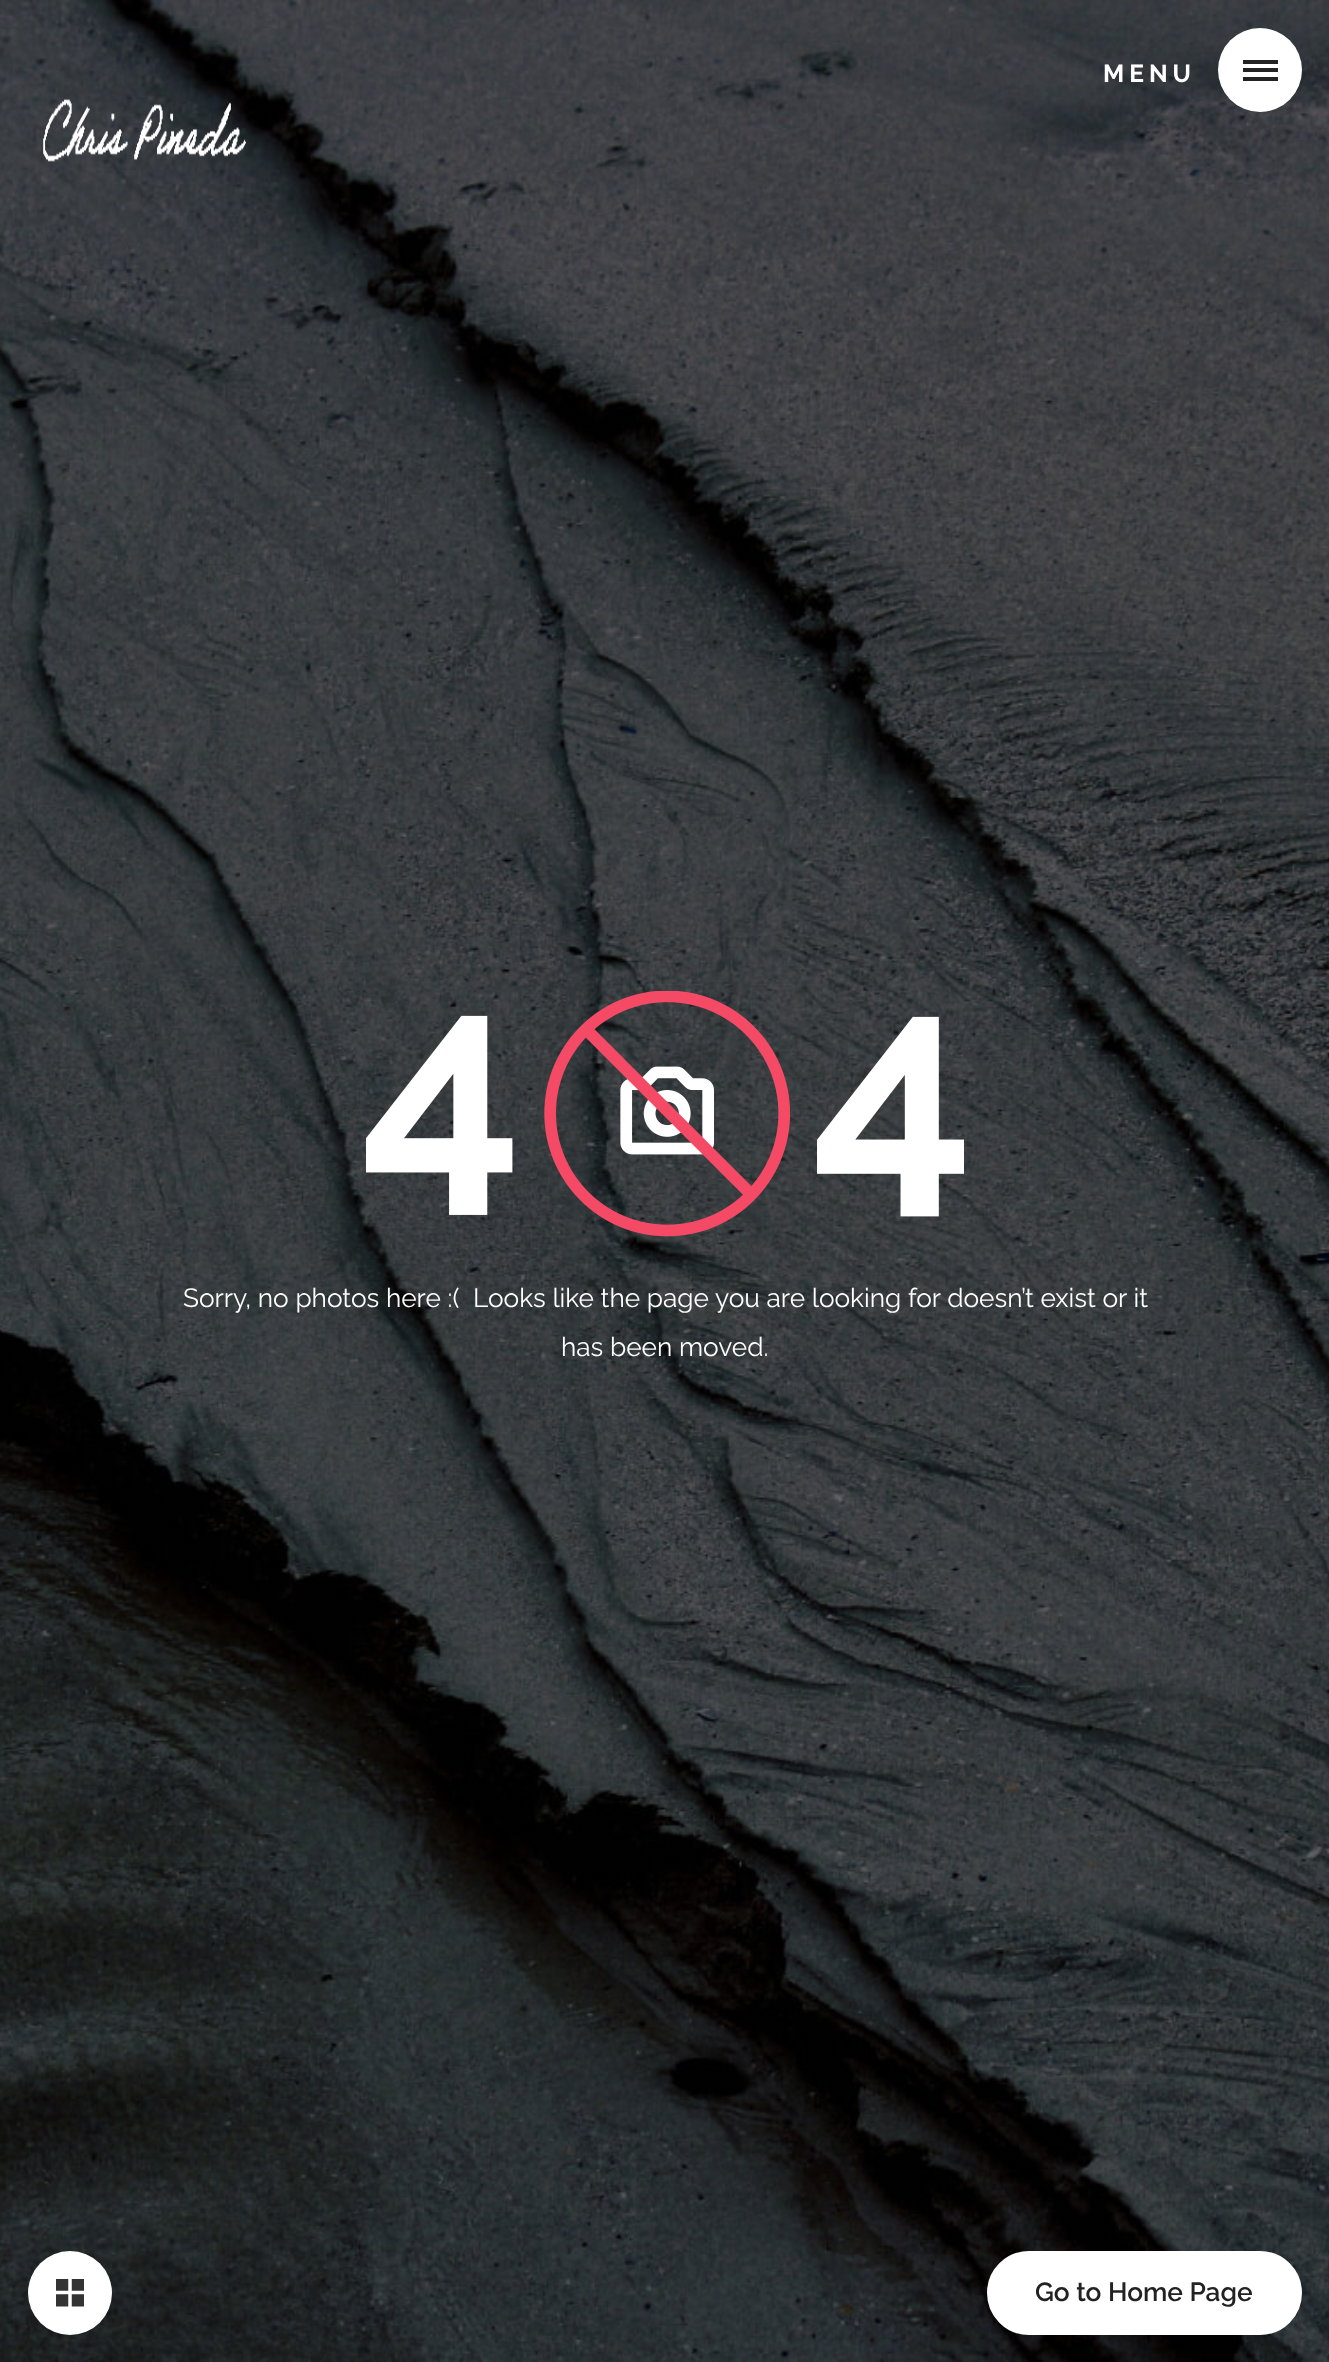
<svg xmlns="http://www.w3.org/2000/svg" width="1329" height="2362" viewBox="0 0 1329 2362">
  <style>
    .t1 { font: bold 24.5px Raleway; letter-spacing: 5px; fill: #fff; }
    .t2 { font: 26.25px Raleway; fill: #fff; }
    .t3 { font: 600 26.25px Raleway; fill: #222; }
  </style>
  <rect width="100%" height="100%" fill="#fff"/>
  <image x="0" y="0" width="1329" height="2362" href="images/2.png"/>
  <text x="1103" y="82" class="t1">MENU</text>
  <circle cx="1260" cy="70" r="42" fill="#fff"/>
  <rect x="1243" y="60" width="35" height="4" fill="#222"/>
  <rect x="1243" y="68" width="35" height="4" fill="#222"/>
  <rect x="1243" y="77" width="35" height="4" fill="#222"/>
  <image x="43" y="99" width="203" height="63" href="images/1.png"/>
  <image x="366" y="991" width="598" height="246" href="images/3.png"/>
  <text x="183" y="1307" class="t2" xml:space="preserve">Sorry, no photos here :(  Looks like the page you are looking for doesn’t exist or it</text>
  <text x="561" y="1356" class="t2">has been moved.</text>
  <circle cx="70" cy="2293" r="42" fill="#fff"/>
  <image x="56" y="2279" width="28" height="28" href="images/4.png"/>
  <rect x="989" y="2253" width="311" height="80" rx="40" fill="#fff" stroke="#fff" stroke-width="4"/>
  <text x="1035" y="2301" class="t3">Go to Home Page</text>
</svg>
